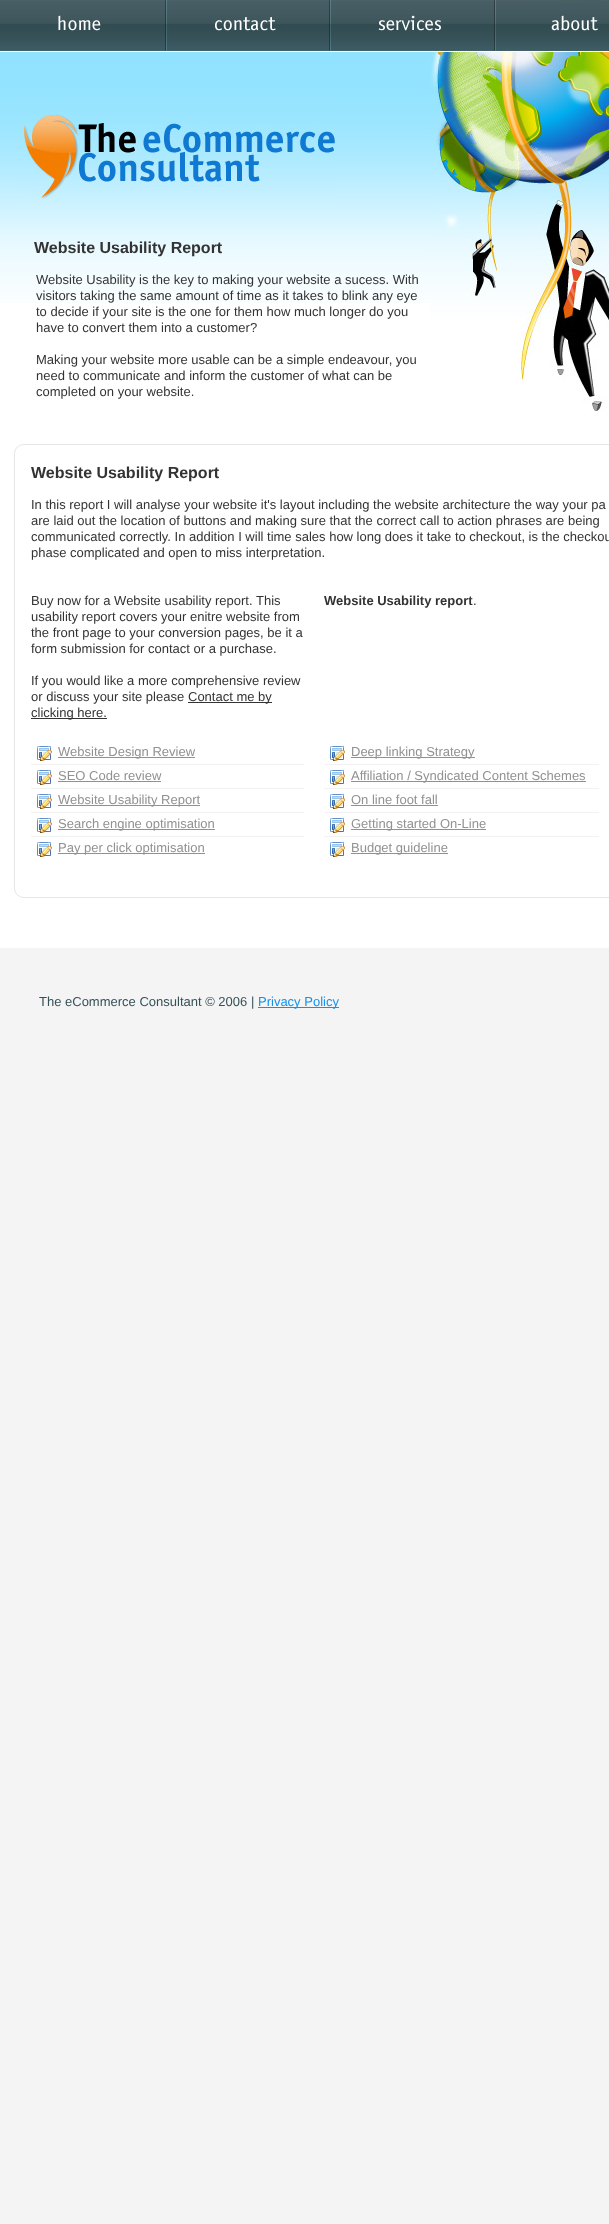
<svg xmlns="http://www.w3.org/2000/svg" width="609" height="2224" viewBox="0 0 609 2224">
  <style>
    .t1 { font: bold 16px Liberation Sans; fill: #333; }
    .t2 { font: 13px Liberation Sans; fill: #333; }
    .t3 { font: bold 13px Liberation Sans; fill: #333; }
    .t4 { font: 13px Liberation Sans; fill: #919191; }
    .t5 { font: 13px Liberation Sans; fill: #355157; }
    .t6 { font: 13px Liberation Sans; fill: #1292ed; }
  </style>
  <rect width="100%" height="100%" fill="#f4f4f4"/>
  <image x="0" y="0" width="609" height="52" href="images/1.png"/>
  <image x="58" y="0" width="108" height="51" href="images/2.png"/>
  <image x="166" y="0" width="164" height="51" href="images/3.png"/>
  <image x="330" y="0" width="165" height="51" href="images/4.png"/>
  <image x="495" y="0" width="113" height="51" href="images/5.png"/>
  <rect x="0" y="303" width="609" height="645" fill="#fff"/>
  <image x="0" y="52" width="430" height="251" href="images/6.png"/>
  <image x="430" y="52" width="179" height="359" href="images/7.png"/>
  <image x="22" y="109" width="313" height="93" href="images/8.png"/>
  <text x="34" y="253" class="t1">Website Usability Report</text>
  <text x="36" y="284" class="t2">Website Usability is the key to making your website a sucess. With</text>
  <text x="36" y="300" class="t2">visitors taking the same amount of time as it takes to blink any eye</text>
  <text x="36" y="316" class="t2">to decide if your site is the one for them how much longer do you</text>
  <text x="36" y="332" class="t2">have to convert them into a customer?</text>
  <text x="36" y="364" class="t2">Making your website more usable can be a simple endeavour, you</text>
  <text x="36" y="380" class="t2">need to communicate and inform the customer of what can be</text>
  <text x="36" y="396" class="t2">completed on your website.</text>
  <rect x="23" y="444" width="586" height="1" fill="#e5e5e5"/>
  <image x="14" y="444" width="9" height="12" href="images/9.png"/>
  <rect x="14" y="456" width="1" height="430" fill="#e5e5e5"/>
  <text x="31" y="478" class="t1">Website Usability Report</text>
  <text x="31" y="509" class="t2">In this report I will analyse your website it's layout including the website architecture the way your pa</text>
  <text x="31" y="525" class="t2">are laid out the location of buttons and making sure that the correct call to action phrases are being</text>
  <text x="31" y="541" class="t2">communicated correctly. In addition I will time sales how long does it take to checkout, is the checkou</text>
  <text x="31" y="557" class="t2">phase complicated and open to miss interpretation.</text>
  <text x="31" y="605" class="t2">Buy now for a Website usability report. This</text>
  <text x="31" y="621" class="t2">usability report covers your enitre website from</text>
  <text x="31" y="637" class="t2">the front page to your conversion pages, be it a</text>
  <text x="31" y="653" class="t2">form submission for contact or a purchase.</text>
  <text x="31" y="685" class="t2">If you would like a more comprehensive review</text>
  <text x="31" y="701" class="t2">or discuss your site please</text>
  <rect x="188" y="702" width="84" height="1" fill="#333"/>
  <text x="188" y="701" class="t2">Contact me by</text>
  <rect x="31" y="718" width="76" height="1" fill="#333"/>
  <text x="31" y="717" class="t2">clicking here.</text>
  <text x="324" y="605" class="t3">Website Usability report</text>
  <text x="473" y="605" class="t2">.</text>
  <rect x="31" y="764" width="273" height="1" fill="#f1f1f1"/>
  <image x="37" y="746" width="15" height="15" href="images/10.png"/>
  <rect x="58" y="757" width="137" height="1" fill="#919191"/>
  <text x="58" y="756" class="t4">Website Design Review</text>
  <rect x="31" y="788" width="273" height="1" fill="#f1f1f1"/>
  <image x="37" y="770" width="15" height="15" href="images/10.png"/>
  <text x="58" y="780" class="t4">SEO Code review</text>
  <rect x="58" y="781" width="103" height="1" fill="#919191"/>
  <rect x="31" y="812" width="273" height="1" fill="#f1f1f1"/>
  <image x="37" y="794" width="15" height="15" href="images/10.png"/>
  <rect x="58" y="805" width="142" height="1" fill="#919191"/>
  <text x="58" y="804" class="t4">Website Usability Report</text>
  <rect x="31" y="836" width="273" height="1" fill="#f1f1f1"/>
  <image x="37" y="818" width="15" height="15" href="images/10.png"/>
  <rect x="58" y="829" width="157" height="1" fill="#919191"/>
  <text x="58" y="828" class="t4">Search engine optimisation</text>
  <image x="37" y="842" width="15" height="15" href="images/10.png"/>
  <rect x="58" y="853" width="147" height="1" fill="#919191"/>
  <text x="58" y="852" class="t4">Pay per click optimisation</text>
  <rect x="324" y="764" width="275" height="1" fill="#f1f1f1"/>
  <image x="330" y="746" width="15" height="15" href="images/10.png"/>
  <rect x="351" y="757" width="124" height="1" fill="#919191"/>
  <text x="351" y="756" class="t4">Deep linking Strategy</text>
  <rect x="324" y="788" width="275" height="1" fill="#f1f1f1"/>
  <image x="330" y="770" width="15" height="15" href="images/10.png"/>
  <rect x="351" y="781" width="235" height="1" fill="#919191"/>
  <text x="351" y="780" class="t4">Affiliation / Syndicated Content Schemes</text>
  <rect x="324" y="812" width="275" height="1" fill="#f1f1f1"/>
  <image x="330" y="794" width="15" height="15" href="images/10.png"/>
  <text x="351" y="804" class="t4">On line foot fall</text>
  <rect x="351" y="805" width="87" height="1" fill="#919191"/>
  <rect x="324" y="836" width="275" height="1" fill="#f1f1f1"/>
  <image x="330" y="818" width="15" height="15" href="images/10.png"/>
  <rect x="351" y="829" width="135" height="1" fill="#919191"/>
  <text x="351" y="828" class="t4">Getting started On-Line</text>
  <image x="330" y="842" width="15" height="15" href="images/10.png"/>
  <rect x="351" y="853" width="97" height="1" fill="#919191"/>
  <text x="351" y="852" class="t4">Budget guideline</text>
  <rect x="23" y="897" width="586" height="1" fill="#e5e5e5"/>
  <image x="14" y="886" width="9" height="12" href="images/11.png"/>
  <text x="39" y="1006" class="t5">The eCommerce Consultant © 2006 |</text>
  <rect x="258" y="1007" width="81" height="1" fill="#1292ed"/>
  <text x="258" y="1006" class="t6">Privacy Policy</text>
</svg>
